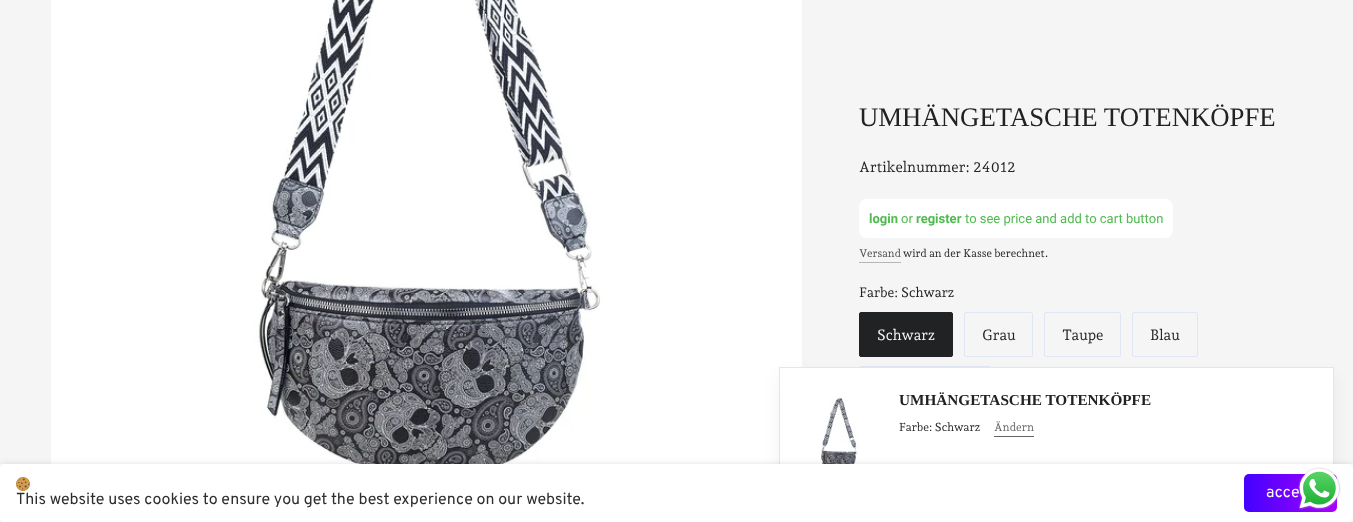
<svg xmlns="http://www.w3.org/2000/svg" width="1353" height="522" viewBox="0 0 1353 522">
  <style>
    .t1 { font: 26.75px Liberation Serif; fill: #202223; }
    .t2 { font: 14.75px Andada Pro; fill: #202223; }
    .t3 { font: bold 13px Roboto; fill: #4fba4f; }
    .t4 { font: 13px Roboto; fill: #4fba4f; }
    .t5 { font: 11px Andada Pro; fill: #4b4c4d; }
    .t6 { font: 11px Andada Pro; fill: #202223; }
    .t7 { font: 13.5px Andada Pro; fill: #202223; }
    .t8 { font: 14.75px Andada Pro; fill: #f5f5f5; }
    .t9 { font: bold 15.25px Liberation Serif; fill: #202223; }
    .t10 { font: 11.5px Andada Pro; fill: #202223; }
    .t11 { font: 11.5px Andada Pro; fill: #636465; }
    .t12 { font: 16px Overpass; fill: #2d2d2d; }
    .t13 { font: 16px Overpass; fill: #fff; }
  </style>
  <defs>
    <clipPath id="clip1"><path d="M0 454H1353V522H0ZM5 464H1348C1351 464 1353 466 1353 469V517C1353 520 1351 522 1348 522H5C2 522 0 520 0 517V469C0 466 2 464 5 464Z" clip-rule="evenodd"/></clipPath>
    <linearGradient id="g1" gradientUnits="userSpaceOnUse" x1="1244" y1="493" x2="1337" y2="493"><stop offset="0" stop-color="#4401ff"/><stop offset="1" stop-color="#a901ff"/></linearGradient>
  </defs>
  <rect width="100%" height="100%" fill="#f5f5f5"/>
  <image x="51" y="0" width="751" height="464" href="images/1.png"/>
  <text x="859" y="126" class="t1">UMHÄNGETASCHE TOTENKÖPFE</text>
  <text x="859" y="172" class="t2">Artikelnummer: 24012</text>
  <rect x="859" y="199" width="314" height="39" rx="8" fill="#fff"/>
  <text x="869" y="223" class="t3">login</text>
  <text x="901" y="223" class="t4">or</text>
  <text x="916" y="223" class="t3">register</text>
  <text x="965" y="223" class="t4">to see price and add to cart button</text>
  <text x="859" y="257" class="t5">Versand</text>
  <rect x="859" y="262" width="42" height="1" fill="#b5b6b6"/>
  <text x="903" y="257" class="t6">wird an der Kasse berechnet.</text>
  <text x="859" y="297" class="t7">Farbe: Schwarz</text>
  <rect x="859.5" y="312.5" width="93" height="44" rx="1.5" fill="#202223" stroke="#202223"/>
  <text x="877" y="340" class="t8">Schwarz</text>
  <rect x="964.5" y="312.5" width="68" height="44" rx="1.5" fill="none" stroke="#e0e6f4"/>
  <text x="982" y="340" class="t2">Grau</text>
  <rect x="1044.5" y="312.5" width="76" height="44" rx="1.5" fill="none" stroke="#e0e6f4"/>
  <text x="1062" y="340" class="t2">Taupe</text>
  <rect x="1132.5" y="312.5" width="65" height="44" rx="1.5" fill="none" stroke="#e0e6f4"/>
  <text x="1150" y="340" class="t2">Blau</text>
  <rect x="859.5" y="366.5" width="131" height="44" rx="1.5" fill="none" stroke="#e0e6f4"/>
  <rect x="779" y="375" width="555" height="136" fill="#0000000d" filter="blur(8px)"/>
  <rect x="780" y="368" width="553" height="96" fill="#fff"/>
  <rect x="779.5" y="367.5" width="554" height="135" fill="none" stroke="#e0e6f4"/>
  <image x="819" y="395" width="40" height="69" href="images/2.png"/>
  <text x="899" y="405" class="t9">UMHÄNGETASCHE TOTENKÖPFE</text>
  <text x="899" y="431" class="t10">Farbe: Schwarz</text>
  <text x="994" y="431" class="t11">Ändern</text>
  <rect x="994" y="436" width="40" height="1" fill="#636465"/>
  <rect x="0" y="464" width="1353" height="58" fill="#fff"/>
  <g clip-path="url(#clip1)">
    <rect x="0" y="464" width="1353" height="58" rx="5" fill="#0000001f" filter="blur(3px)"/>
  </g>
  <image x="16" y="477" width="14" height="14" href="images/3.png"/>
  <text x="16" y="504" class="t12">This website uses cookies to ensure you get the best experience on our website.</text>
  <rect x="1244" y="474" width="93" height="38" rx="5" fill="url(#g1)"/>
  <text x="1266" y="497" class="t13">acce</text>
  <image x="1298" y="467" width="43" height="43" href="images/4.png"/>
</svg>
